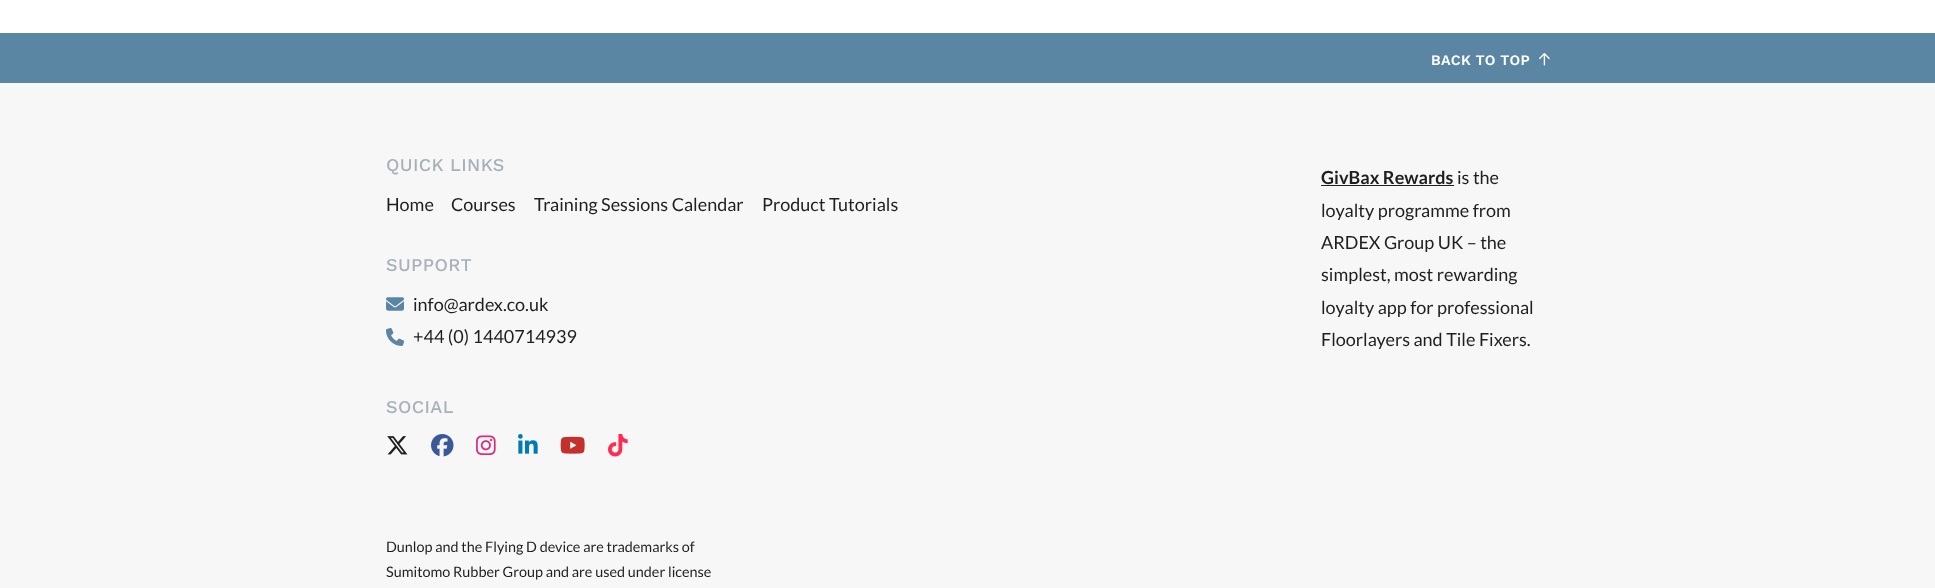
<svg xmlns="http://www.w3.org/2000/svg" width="1935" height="588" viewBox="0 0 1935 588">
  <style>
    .t1 { font: 600 14.4px Work Sans; letter-spacing: 0.4px; fill: #fff; }
    .t2 { font: 500 18px Work Sans; letter-spacing: 0.4px; fill: #a7b1b8; }
    .t3 { font: 18px Lato; fill: #1f1f1f; }
    .t4 { font: 14.4px Lato; fill: #1f1f1f; }
    .t5 { font: bold 18px Lato; fill: #1f1f1f; }
  </style>
  <rect width="100%" height="100%" fill="#fff"/>
  <rect x="0" y="33" width="1935" height="50" fill="#5b86a3"/>
  <text x="1431" y="65" class="t1">BACK TO TOP</text>
  <image x="1539" y="53" width="11" height="13" href="images/1.png"/>
  <rect x="0" y="83" width="1935" height="505" fill="#f7f7f7"/>
  <text x="386" y="171" class="t2">QUICK LINKS</text>
  <text x="386" y="211" class="t3">Home</text>
  <text x="451" y="211" class="t3">Courses</text>
  <text x="534" y="211" class="t3">Training Sessions Calendar</text>
  <text x="762" y="211" class="t3">Product Tutorials</text>
  <text x="386" y="271" class="t2">SUPPORT</text>
  <image x="386" y="297" width="18" height="14" href="images/2.png"/>
  <text x="413" y="311" class="t3">info@ardex.co.uk</text>
  <image x="386" y="328" width="18" height="18" href="images/3.png"/>
  <text x="413" y="343" class="t3">+44 (0) 1440714939</text>
  <text x="386" y="413" class="t2">SOCIAL</text>
  <image x="387" y="436" width="21" height="19" href="images/4.png"/>
  <image x="431" y="434" width="23" height="23" href="images/5.png"/>
  <image x="476" y="435" width="20" height="20" href="images/6.png"/>
  <image x="518" y="434" width="20" height="20" href="images/7.png"/>
  <image x="560" y="436" width="25" height="18" href="images/8.png"/>
  <image x="608" y="434" width="20" height="23" href="images/9.png"/>
  <text x="386" y="552" class="t4">Dunlop and the Flying D device are trademarks of</text>
  <text x="386" y="577" class="t4">Sumitomo Rubber Group and are used under license</text>
  <text x="1321" y="184" class="t5">GivBax Rewards</text>
  <rect x="1321" y="185" width="133" height="1" fill="#1f1f1f"/>
  <text x="1457" y="184" class="t3">is the</text>
  <text x="1321" y="217" class="t3">loyalty programme from</text>
  <text x="1321" y="249" class="t3">ARDEX Group UK – the</text>
  <text x="1321" y="281" class="t3">simplest, most rewarding</text>
  <text x="1321" y="314" class="t3">loyalty app for professional</text>
  <text x="1321" y="346" class="t3">Floorlayers and Tile Fixers.</text>
</svg>
